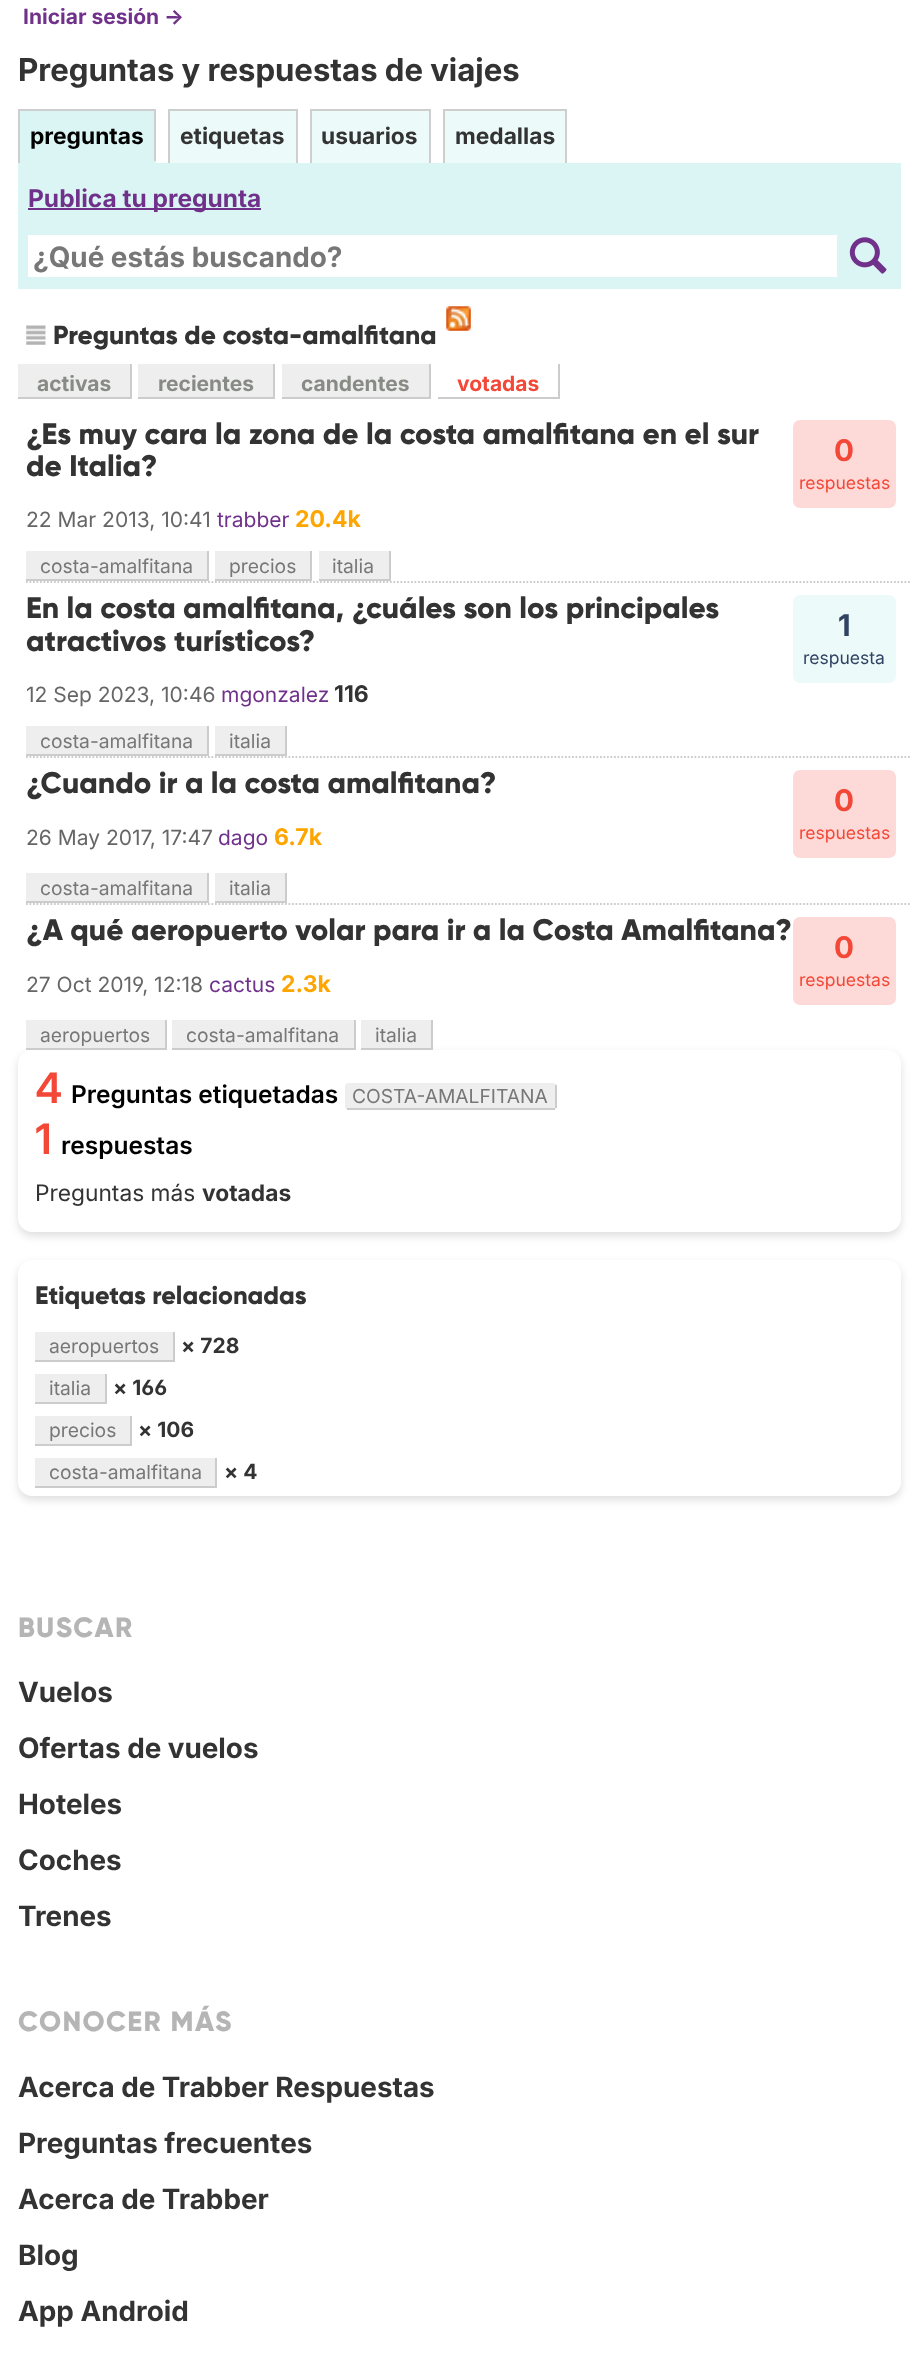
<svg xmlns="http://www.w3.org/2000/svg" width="918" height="2366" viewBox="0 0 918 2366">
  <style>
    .t1 { font: bold 21px Inter; fill: #70318b; }
    .t2 { font: bold 31.5px 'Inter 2'; fill: #333; }
    .t3 { font: bold 22.75px Inter; fill: #000; }
    .t4 { font: bold 22.75px Inter; fill: #333; }
    .t5 { font: bold 24.5px Inter; fill: #70318b; }
    .t6 { font: bold 28px 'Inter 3'; fill: #777; }
    .t7 { font: 800 26.25px Gilroy; fill: #333; }
    .t8 { font: bold 21px Inter; fill: #888a85; }
    .t9 { font: bold 21px Inter; fill: #f34737; }
    .t10 { font: 800 29.75px Gilroy; fill: #333; }
    .t11 { font: 21px Inter; fill: #666; }
    .t12 { font: 21px Inter; fill: #70318b; }
    .t13 { font: bold 23px Inter; fill: #ffa500; }
    .t14 { font: 19.25px Inter; fill: #777; }
    .t15 { font: bold 29.75px 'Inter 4'; fill: #f34737; }
    .t16 { font: 17.5px Inter; fill: #f34737; }
    .t17 { font: bold 23px Inter; fill: #333; }
    .t18 { font: bold 29.75px 'Inter 4'; fill: #314362; }
    .t19 { font: 17.5px Inter; fill: #314362; }
    .t20 { font: 21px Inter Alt; fill: #666; }
    .t21 { font: 600 42px Inter; fill: #f34737; }
    .t22 { font: 600 24.5px 'Inter 2'; fill: #000; }
    .t23 { font: 22.75px Inter; fill: #333; }
    .t24 { font: 800 25.25px Gilroy; fill: #333; }
    .t25 { font: bold 21px Inter; fill: #333; }
    .t26 { font: bold 21px Inter Alt; fill: #333; }
    .t27 { font: 800 28px Gilroy; letter-spacing: 1.4px; fill: #b5b5b5; }
    .t28 { font: bold 28px 'Inter 3'; fill: #333; }
  </style>
  <defs>
    <clipPath id="clip1"><path d="M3 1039H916V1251H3ZM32 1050H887C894.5 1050 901 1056.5 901 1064V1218C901 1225.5 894.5 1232 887 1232H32C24.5 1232 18 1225.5 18 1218V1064C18 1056.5 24.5 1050 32 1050Z" clip-rule="evenodd"/></clipPath>
    <clipPath id="clip2"><path d="M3 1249H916V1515H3ZM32 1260H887C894.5 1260 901 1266.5 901 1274V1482C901 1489.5 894.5 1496 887 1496H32C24.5 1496 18 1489.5 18 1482V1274C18 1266.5 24.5 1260 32 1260Z" clip-rule="evenodd"/></clipPath>
  </defs>
  <rect width="100%" height="100%" fill="#fff"/>
  <text x="23" y="24" class="t1">Iniciar sesión →</text>
  <text x="18" y="81" class="t2">Preguntas y respuestas de viajes</text>
  <rect x="20" y="111" width="134" height="50" fill="#dbf5f5"/>
  <rect x="18" y="109" width="138" height="2" fill="#cecece"/>
  <rect x="154" y="109" width="2" height="54" fill="#cecece"/>
  <rect x="18" y="161" width="138" height="2" fill="#dbf5f5"/>
  <rect x="18" y="109" width="2" height="54" fill="#cecece"/>
  <text x="30" y="144" class="t3">preguntas</text>
  <rect x="170" y="111" width="126" height="52" fill="#edfafa"/>
  <rect x="168" y="109" width="130" height="2" fill="#cecece"/>
  <rect x="296" y="109" width="2" height="54" fill="#cecece"/>
  <rect x="168" y="109" width="2" height="54" fill="#cecece"/>
  <text x="180" y="144" class="t4">etiquetas</text>
  <rect x="312" y="111" width="117" height="52" fill="#edfafa"/>
  <rect x="310" y="109" width="121" height="2" fill="#cecece"/>
  <rect x="429" y="109" width="2" height="54" fill="#cecece"/>
  <rect x="310" y="109" width="2" height="54" fill="#cecece"/>
  <text x="321" y="144" class="t4">usuarios</text>
  <rect x="445" y="111" width="120" height="52" fill="#edfafa"/>
  <rect x="443" y="109" width="124" height="2" fill="#cecece"/>
  <rect x="565" y="109" width="2" height="54" fill="#cecece"/>
  <rect x="443" y="109" width="2" height="54" fill="#cecece"/>
  <text x="455" y="144" class="t4">medallas</text>
  <rect x="18" y="163" width="883" height="126" fill="#dbf5f5"/>
  <rect x="28" y="208" width="233" height="2" fill="#70318b"/>
  <text x="28" y="207" class="t5">Publica tu pregunta</text>
  <rect x="28" y="235" width="809" height="42" fill="#fff"/>
  <text x="33" y="267" class="t6">¿Qué estás buscando?</text>
  <image x="849" y="237" width="38" height="37" href="images/1.png"/>
  <image x="446" y="306" width="25" height="25" href="images/2.png"/>
  <image x="26" y="325" width="20" height="20" href="images/3.png"/>
  <text x="53" y="344" class="t7">Preguntas de costa-amalfitana</text>
  <rect x="18" y="364" width="112" height="33" fill="#eee"/>
  <rect x="130" y="364" width="2" height="35" fill="#ccc"/>
  <rect x="18" y="397" width="113" height="2" fill="#ccc"/>
  <text x="37" y="391" class="t8">activas</text>
  <rect x="138" y="364" width="135" height="33" fill="#eee"/>
  <rect x="273" y="364" width="2" height="35" fill="#ccc"/>
  <rect x="138" y="397" width="137" height="2" fill="#ccc"/>
  <text x="158" y="391" class="t8">recientes</text>
  <rect x="282" y="364" width="147" height="33" fill="#eee"/>
  <rect x="429" y="364" width="2" height="35" fill="#ccc"/>
  <rect x="282" y="397" width="149" height="2" fill="#ccc"/>
  <text x="301" y="391" class="t8">candentes</text>
  <rect x="558" y="364" width="2" height="35" fill="#ccc"/>
  <rect x="438" y="397" width="122" height="2" fill="#ccc"/>
  <text x="457" y="391" class="t9">votadas</text>
  <text x="26" y="444" class="t10">¿Es muy cara la zona de la costa amalfitana en el sur</text>
  <text x="26" y="476" class="t10">de Italia?</text>
  <text x="26" y="527" class="t11">22 Mar 2013, 10:41</text>
  <text x="217" y="527" class="t12">trabber</text>
  <text x="295" y="527" class="t13">20.4k</text>
  <rect x="26" y="551" width="181" height="28" fill="#eee"/>
  <text x="40" y="573" class="t14">costa-amalfitana</text>
  <rect x="207" y="551" width="2" height="30" fill="#ccc"/>
  <rect x="26" y="579" width="182" height="2" fill="#ccc"/>
  <rect x="215" y="551" width="95" height="28" fill="#eee"/>
  <text x="229" y="573" class="t14">precios</text>
  <rect x="310" y="551" width="2" height="30" fill="#ccc"/>
  <rect x="215" y="579" width="97" height="2" fill="#ccc"/>
  <rect x="319" y="551" width="70" height="28" fill="#eee"/>
  <text x="332" y="573" class="t14">italia</text>
  <rect x="389" y="551" width="2" height="30" fill="#ccc"/>
  <rect x="319" y="579" width="71" height="2" fill="#ccc"/>
  <rect x="793" y="420" width="103" height="88" rx="7" fill="#fddad7"/>
  <text x="834" y="461" class="t15">0</text>
  <text x="799" y="489" class="t16">respuestas</text>
  <path d="M26 582H910" fill="none" stroke="#ccccce" stroke-width="1.8" stroke-dasharray="1.75 1.75"/>
  <text x="26" y="618" class="t10">En la costa amalfitana, ¿cuáles son los principales</text>
  <text x="26" y="651" class="t10">atractivos turísticos?</text>
  <text x="26" y="702" class="t11">12 Sep 2023, 10:46</text>
  <text x="221" y="702" class="t12">mgonzalez</text>
  <text x="334" y="702" class="t17">116</text>
  <rect x="26" y="726" width="181" height="28" fill="#eee"/>
  <text x="40" y="748" class="t14">costa-amalfitana</text>
  <rect x="207" y="726" width="2" height="30" fill="#ccc"/>
  <rect x="26" y="754" width="182" height="2" fill="#ccc"/>
  <rect x="215" y="726" width="70" height="28" fill="#eee"/>
  <text x="229" y="748" class="t14">italia</text>
  <rect x="285" y="726" width="2" height="30" fill="#ccc"/>
  <rect x="215" y="754" width="72" height="2" fill="#ccc"/>
  <rect x="793" y="595" width="103" height="88" rx="7" fill="#edfafa"/>
  <text x="838" y="636" class="t18">1</text>
  <text x="803" y="664" class="t19">respuesta</text>
  <path d="M26 757H910" fill="none" stroke="#ccccce" stroke-width="1.8" stroke-dasharray="1.75 1.75"/>
  <text x="26" y="793" class="t10">¿Cuando ir a la costa amalfitana?</text>
  <text x="26" y="845" class="t11">26 May 2017, 17:47</text>
  <text x="218" y="845" class="t12">dago</text>
  <text x="274" y="845" class="t13">6.7k</text>
  <rect x="26" y="873" width="181" height="28" fill="#eee"/>
  <text x="40" y="895" class="t14">costa-amalfitana</text>
  <rect x="207" y="873" width="2" height="30" fill="#ccc"/>
  <rect x="26" y="901" width="182" height="2" fill="#ccc"/>
  <rect x="215" y="873" width="70" height="28" fill="#eee"/>
  <text x="229" y="895" class="t14">italia</text>
  <rect x="285" y="873" width="2" height="30" fill="#ccc"/>
  <rect x="215" y="901" width="72" height="2" fill="#ccc"/>
  <rect x="793" y="770" width="103" height="88" rx="7" fill="#fddad7"/>
  <text x="834" y="811" class="t15">0</text>
  <text x="799" y="839" class="t16">respuestas</text>
  <path d="M26 904H910" fill="none" stroke="#ccccce" stroke-width="1.8" stroke-dasharray="1.75 1.75"/>
  <text x="26" y="940" class="t10">¿A qué aeropuerto volar para ir a la Costa Amalfitana?</text>
  <text x="26" y="992" class="t20">27 Oct 2019, 12:18</text>
  <text x="209" y="992" class="t12">cactus</text>
  <text x="281" y="992" class="t13">2.3k</text>
  <g clip-path="url(#clip1)">
    <rect x="18" y="1054" width="883" height="182" rx="14" fill="#00000021" filter="blur(4.5px)"/>
  </g>
  <rect x="26" y="1020" width="139" height="28" fill="#eee"/>
  <text x="40" y="1042" class="t14">aeropuertos</text>
  <rect x="165" y="1020" width="2" height="30" fill="#ccc"/>
  <rect x="26" y="1048" width="140" height="2" fill="#ccc"/>
  <rect x="172" y="1020" width="182" height="28" fill="#eee"/>
  <text x="186" y="1042" class="t14">costa-amalfitana</text>
  <rect x="354" y="1020" width="2" height="30" fill="#ccc"/>
  <rect x="172" y="1048" width="183" height="2" fill="#ccc"/>
  <rect x="361" y="1020" width="70" height="28" fill="#eee"/>
  <text x="375" y="1042" class="t14">italia</text>
  <rect x="431" y="1020" width="2" height="30" fill="#ccc"/>
  <rect x="361" y="1048" width="71" height="2" fill="#ccc"/>
  <rect x="793" y="917" width="103" height="88" rx="7" fill="#fddad7"/>
  <text x="834" y="958" class="t15">0</text>
  <text x="799" y="986" class="t16">respuestas</text>
  <text x="35" y="1103" class="t21">4</text>
  <text x="71" y="1103" class="t22">Preguntas etiquetadas</text>
  <rect x="345" y="1083" width="212" height="27" rx="4" fill="#eee"/>
  <rect x="555" y="1085" width="2" height="23" fill="#ccc"/>
  <rect x="347" y="1108" width="208" height="2" fill="#ccc"/>
  <text x="352" y="1103" class="t14">COSTA-AMALFITANA</text>
  <text x="35" y="1154" class="t21">1</text>
  <text x="61" y="1154" class="t22">respuestas</text>
  <text x="35" y="1201" class="t23">Preguntas más</text>
  <text x="202" y="1201" class="t4">votadas</text>
  <g clip-path="url(#clip2)">
    <rect x="18" y="1264" width="883" height="236" rx="14" fill="#00000021" filter="blur(4.5px)"/>
  </g>
  <text x="35" y="1304" class="t24">Etiquetas relacionadas</text>
  <rect x="35" y="1332" width="138" height="28" fill="#eee"/>
  <text x="49" y="1353" class="t14">aeropuertos</text>
  <rect x="173" y="1332" width="2" height="30" fill="#ccc"/>
  <rect x="35" y="1360" width="140" height="2" fill="#ccc"/>
  <text x="181" y="1353" class="t25">× 728</text>
  <rect x="35" y="1374" width="70" height="28" fill="#eee"/>
  <text x="49" y="1395" class="t14">italia</text>
  <rect x="105" y="1374" width="2" height="30" fill="#ccc"/>
  <rect x="35" y="1402" width="72" height="2" fill="#ccc"/>
  <text x="113" y="1395" class="t26">× 166</text>
  <rect x="35" y="1416" width="95" height="28" fill="#eee"/>
  <text x="49" y="1437" class="t14">precios</text>
  <rect x="130" y="1416" width="2" height="30" fill="#ccc"/>
  <rect x="35" y="1444" width="96" height="2" fill="#ccc"/>
  <text x="138" y="1437" class="t25">× 106</text>
  <rect x="35" y="1458" width="180" height="28" fill="#eee"/>
  <text x="49" y="1479" class="t14">costa-amalfitana</text>
  <rect x="215" y="1458" width="2" height="30" fill="#ccc"/>
  <rect x="35" y="1486" width="182" height="2" fill="#ccc"/>
  <text x="224" y="1479" class="t25">× 4</text>
  <text x="18" y="1637" class="t27">BUSCAR</text>
  <text x="18" y="1702" class="t28">Vuelos</text>
  <text x="18" y="1758" class="t28">Ofertas de vuelos</text>
  <text x="18" y="1814" class="t28">Hoteles</text>
  <text x="18" y="1870" class="t28">Coches</text>
  <text x="18" y="1926" class="t28">Trenes</text>
  <text x="18" y="2031" class="t27">CONOCER MÁS</text>
  <text x="18" y="2097" class="t28">Acerca de Trabber Respuestas</text>
  <text x="18" y="2153" class="t28">Preguntas frecuentes</text>
  <text x="18" y="2209" class="t28">Acerca de Trabber</text>
  <text x="18" y="2265" class="t28">Blog</text>
  <text x="18" y="2321" class="t28">App Android</text>
</svg>
